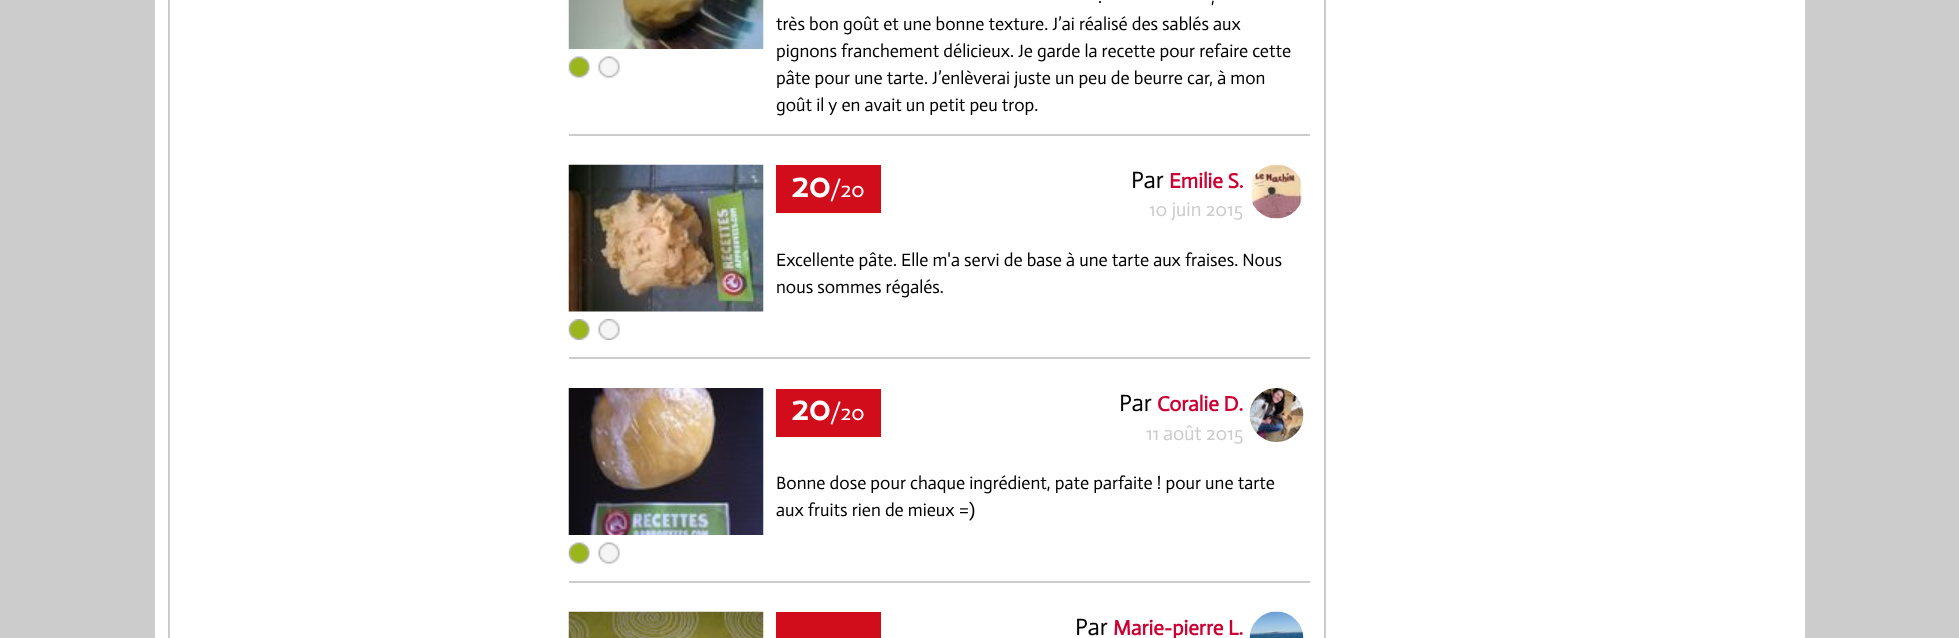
<svg xmlns="http://www.w3.org/2000/svg" width="1959" height="638" viewBox="0 0 1959 638">
  <style>
    .t1 { font: 18px Actor; fill: #000; }
    .t2 { font: bold 36px Actor; fill: #fff; }
    .t3 { font: 22px Actor; fill: #fff; }
    .t4 { font: 24px Actor; fill: #000; }
    .t5 { font: bold 21px Actor; fill: #c03; }
    .t6 { font: 19.5px Actor; fill: #ccc; }
  </style>
  <rect width="100%" height="100%" fill="#ccc"/>
  <rect x="155" y="0" width="1650" height="638" fill="#fff"/>
  <rect x="169" y="-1" width="1156" height="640" fill="none" stroke="#ccc" stroke-width="2"/>
  <rect x="569" y="134" width="741" height="2" fill="#ccc"/>
  <image x="568" y="0" width="196" height="49" href="images/1.png"/>
  <image x="568" y="56" width="22" height="22" href="images/2.png"/>
  <image x="598" y="56" width="22" height="22" href="images/3.png"/>
  <text x="1098" y="3" class="t1">.</text>
  <text x="1211" y="3" class="t1">,</text>
  <text x="776" y="30" class="t1">très bon goût et une bonne texture. J’ai réalisé des sablés aux</text>
  <text x="776" y="57" class="t1">pignons franchement délicieux. Je garde la recette pour refaire cette</text>
  <text x="776" y="84" class="t1">pâte pour une tarte. J’enlèverai juste un peu de beurre car, à mon</text>
  <text x="776" y="111" class="t1">goût il y en avait un petit peu trop.</text>
  <rect x="569" y="357" width="741" height="2" fill="#ccc"/>
  <image x="568" y="164" width="196" height="148" href="images/4.png"/>
  <image x="568" y="319" width="22" height="21" href="images/5.png"/>
  <image x="598" y="319" width="22" height="21" href="images/6.png"/>
  <rect x="776" y="165" width="105" height="48" fill="#d20d1b"/>
  <text x="791" y="197" class="t2">20</text>
  <text x="830" y="197" class="t3">/20</text>
  <text x="1131" y="188" class="t4">Par</text>
  <text x="1169" y="188" class="t5">Emilie S.</text>
  <image x="1250" y="164" width="53" height="55" href="images/7.png"/>
  <text x="1149" y="216" class="t6">10 juin 2015</text>
  <text x="776" y="266" class="t1">Excellente pâte. Elle m'a servi de base à une tarte aux fraises. Nous</text>
  <text x="776" y="293" class="t1">nous sommes régalés.</text>
  <rect x="569" y="581" width="741" height="2" fill="#ccc"/>
  <image x="568" y="388" width="196" height="147" href="images/8.png"/>
  <image x="568" y="542" width="22" height="22" href="images/2.png"/>
  <image x="598" y="542" width="22" height="22" href="images/3.png"/>
  <rect x="776" y="389" width="105" height="48" fill="#d20d1b"/>
  <text x="791" y="420" class="t2">20</text>
  <text x="830" y="420" class="t3">/20</text>
  <text x="1119" y="411" class="t4">Par</text>
  <text x="1157" y="411" class="t5">Coralie D.</text>
  <image x="1249" y="388" width="55" height="54" href="images/9.png"/>
  <text x="1146" y="440" class="t6">11 août 2015</text>
  <text x="776" y="489" class="t1">Bonne dose pour chaque ingrédient, pate parfaite ! pour une tarte</text>
  <text x="776" y="516" class="t1">aux fruits rien de mieux =)</text>
  <image x="568" y="611" width="196" height="27" href="images/10.png"/>
  <rect x="776" y="612" width="105" height="26" fill="#d20d1b"/>
  <text x="1075" y="635" class="t4">Par</text>
  <text x="1113" y="635" class="t5">Marie-pierre L.</text>
  <image x="1249" y="611" width="55" height="27" href="images/11.png"/>
</svg>
